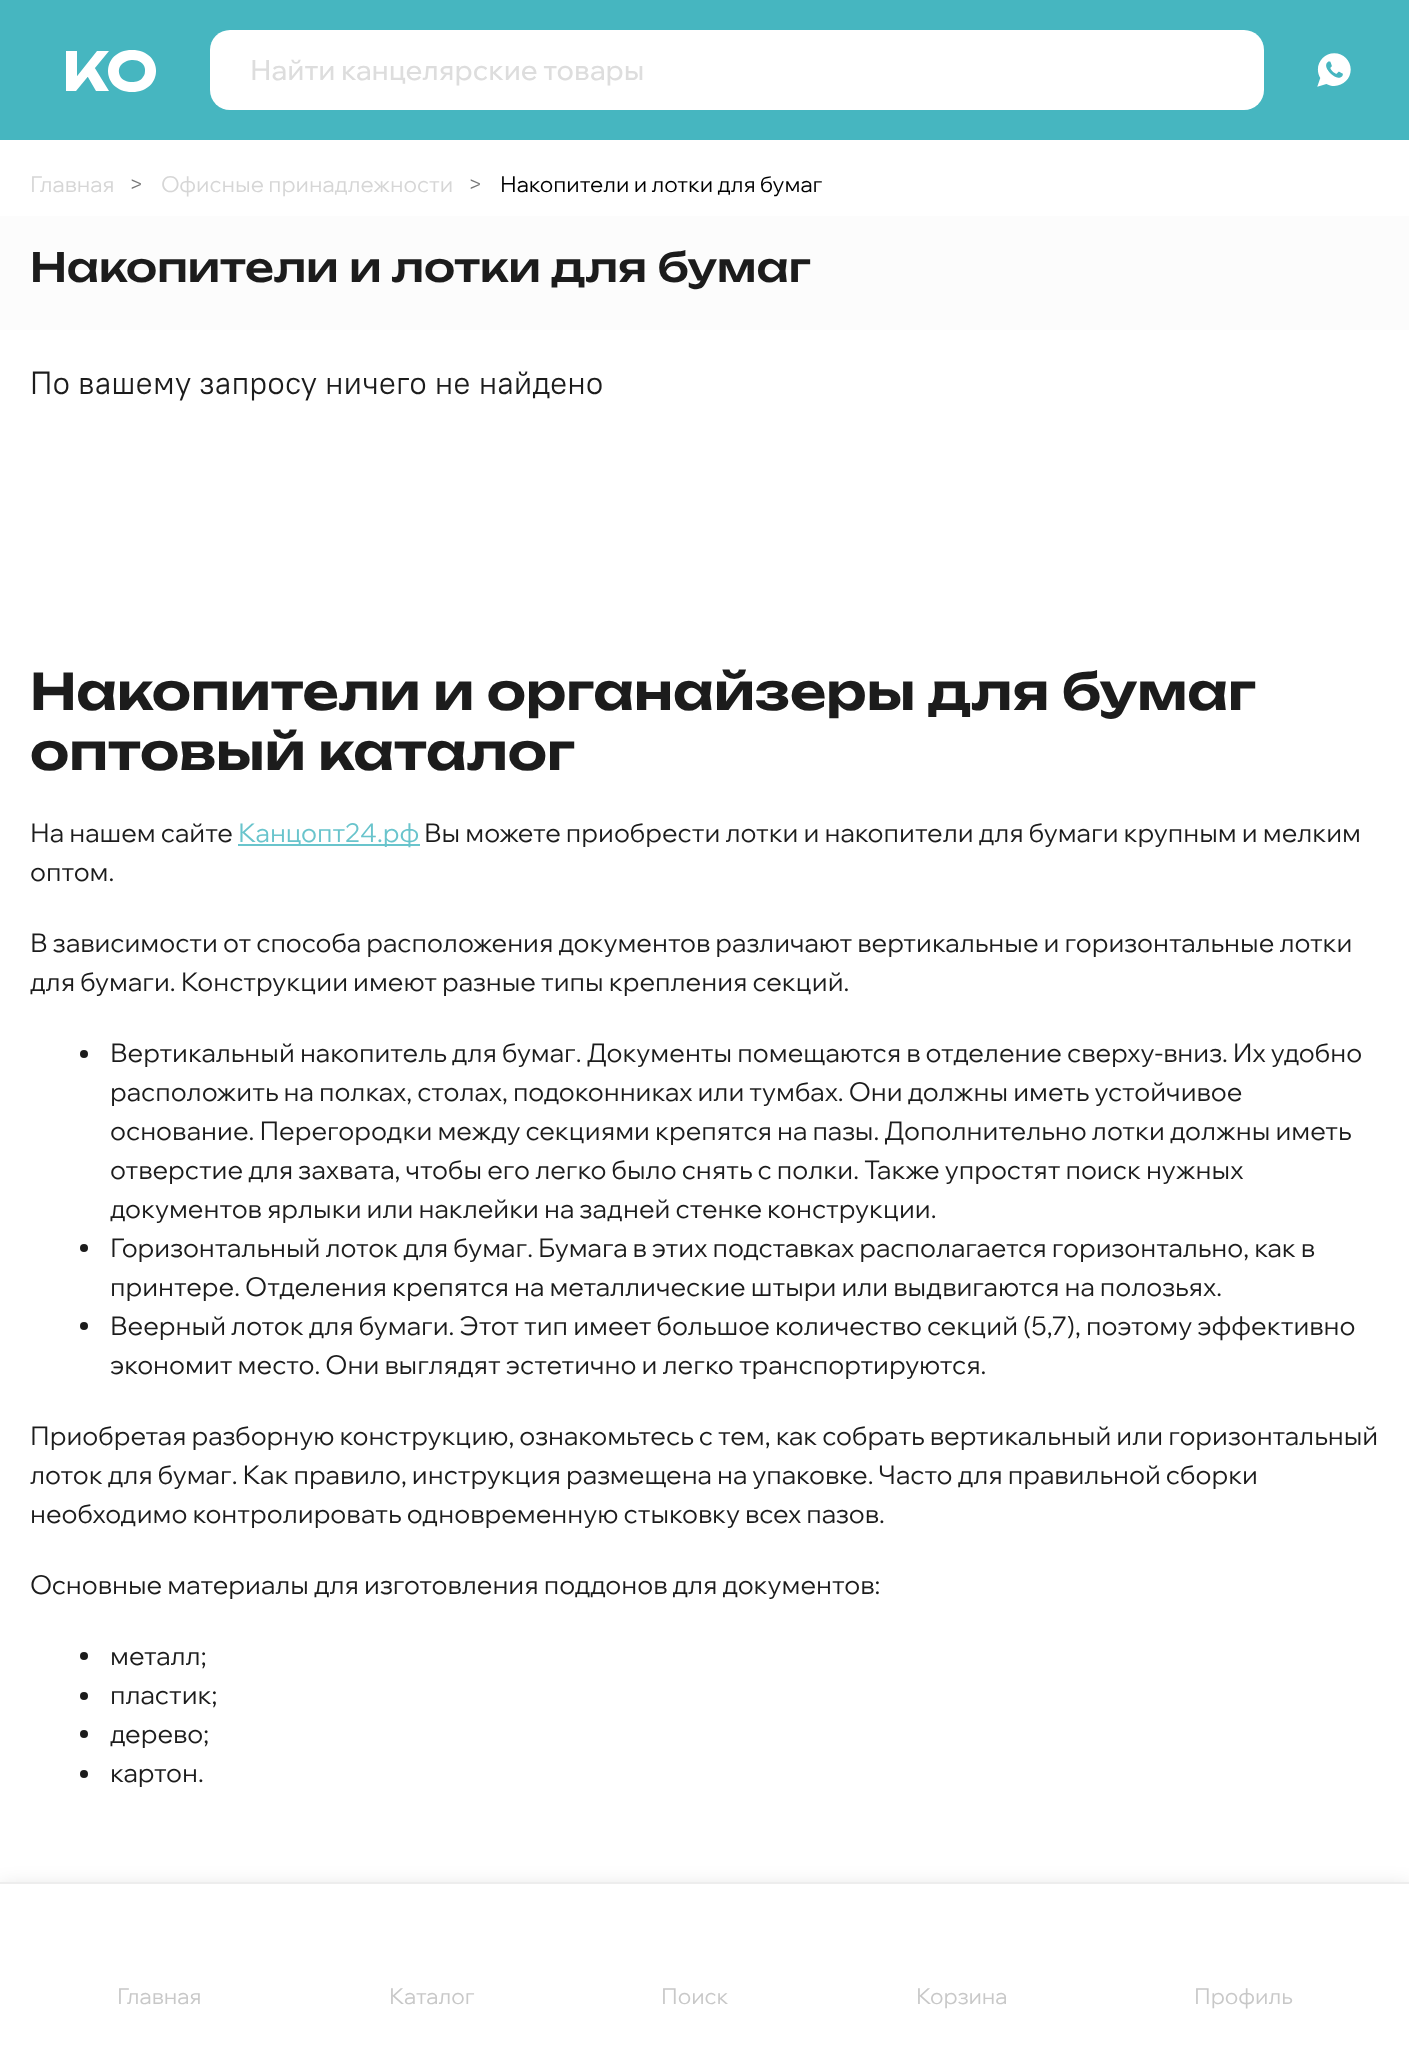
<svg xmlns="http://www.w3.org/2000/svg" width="1409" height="2066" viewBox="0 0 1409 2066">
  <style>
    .t1 { font: 500 28px Wix Madefor Display; fill: #ddd; }
    .t2 { font: 22px Wix Madefor Display; fill: #d6d6d6; }
    .t3 { font: 22px Wix Madefor Display; fill: #767676; }
    .t4 { font: 22px Wix Madefor Display; fill: #000; }
    .t5 { font: 500 40px Unbounded; fill: #1c1c1c; }
    .t6 { font: 32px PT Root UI; fill: #1c1c1c; }
    .t7 { font: 600 50px Unbounded; fill: #1c1c1c; }
    .t8 { font: 26px Wix Madefor Display; fill: #1c1c1c; }
    .t9 { font: 26px Wix Madefor Display; fill: #69c4cc; }
    .t10 { font: 22px Wix Madefor Display; fill: #c8c8c8; }
  </style>
  <rect width="100%" height="100%" fill="#fff"/>
  <rect x="0" y="0" width="1409" height="140" fill="#46b6c0"/>
  <path d="M66 91V51H77V82L74 80L97 51H109L76 91ZM85 72L93 65L109 91H96Z" fill="#fff"/>
  <path d="M132 92C100 92 100 50 132 50C164 50 164 92 132 92ZM132 82C136 82 141 81 143 77C145 75 145 72 145 69C143 54 113 59 120 76C122 80 127 82 132 82Z" fill="#fff"/>
  <rect x="210" y="30" width="1054" height="80" rx="20" fill="#fff"/>
  <text x="250" y="80" class="t1">Найти канцелярские товары</text>
  <image x="1317" y="53" width="34" height="34" href="images/1.png"/>
  <text x="30" y="192" class="t2">Главная</text>
  <text x="129" y="192" class="t3">&gt;</text>
  <text x="161" y="192" class="t2">Офисные принадлежности</text>
  <text x="468" y="192" class="t3">&gt;</text>
  <text x="500" y="192" class="t4">Накопители и лотки для бумаг</text>
  <rect x="0" y="216" width="1409" height="114" fill="#fcfcfc"/>
  <text x="30" y="282" word-spacing="0.5" class="t5">Накопители и лотки для бумаг</text>
  <text x="30" y="394" class="t6">По вашему запросу ничего не найдено</text>
  <text x="30" y="710" class="t7">Накопители и органайзеры для бумаг</text>
  <text x="30" y="770" class="t7">оптовый каталог</text>
  <text x="30" y="842" class="t8">На нашем сайте</text>
  <rect x="238" y="844" width="182" height="2" fill="#69c4cc"/>
  <text x="238" y="842" class="t9">Канцопт24.рф</text>
  <text x="424" y="842" class="t8">Вы можете приобрести лотки и накопители для бумаги крупным и мелким</text>
  <text x="30" y="881" class="t8">оптом.</text>
  <text x="30" y="952" class="t8">В зависимости от способа расположения документов различают вертикальные и горизонтальные лотки</text>
  <text x="30" y="991" class="t8">для бумаги. Конструкции имеют разные типы крепления секций.</text>
  <circle cx="84" cy="1054" r="4" fill="#1c1c1c"/>
  <text x="110" y="1062" class="t8">Вертикальный накопитель для бумаг. Документы помещаются в отделение сверху-вниз. Их удобно</text>
  <text x="110" y="1101" class="t8">расположить на полках, столах, подоконниках или тумбах. Они должны иметь устойчивое</text>
  <text x="110" y="1140" class="t8">основание. Перегородки между секциями крепятся на пазы. Дополнительно лотки должны иметь</text>
  <text x="110" y="1179" class="t8">отверстие для захвата, чтобы его легко было снять с полки. Также упростят поиск нужных</text>
  <text x="110" y="1218" class="t8">документов ярлыки или наклейки на задней стенке конструкции.</text>
  <circle cx="84" cy="1248" r="4" fill="#1c1c1c"/>
  <text x="110" y="1257" class="t8">Горизонтальный лоток для бумаг. Бумага в этих подставках располагается горизонтально, как в</text>
  <text x="110" y="1296" class="t8">принтере. Отделения крепятся на металлические штыри или выдвигаются на полозьях.</text>
  <circle cx="84" cy="1326" r="4" fill="#1c1c1c"/>
  <text x="110" y="1335" class="t8">Веерный лоток для бумаги. Этот тип имеет большое количество секций (5,7), поэтому эффективно</text>
  <text x="110" y="1374" class="t8">экономит место. Они выглядят эстетично и легко транспортируются.</text>
  <text x="30" y="1445" class="t8">Приобретая разборную конструкцию, ознакомьтесь с тем, как собрать вертикальный или горизонтальный</text>
  <text x="30" y="1484" class="t8">лоток для бумаг. Как правило, инструкция размещена на упаковке. Часто для правильной сборки</text>
  <text x="30" y="1523" class="t8">необходимо контролировать одновременную стыковку всех пазов.</text>
  <text x="30" y="1594" class="t8">Основные материалы для изготовления поддонов для документов:</text>
  <circle cx="84" cy="1656" r="4" fill="#1c1c1c"/>
  <text x="110" y="1665" class="t8">металл;</text>
  <circle cx="84" cy="1696" r="4" fill="#1c1c1c"/>
  <text x="110" y="1704" class="t8">пластик;</text>
  <circle cx="84" cy="1734" r="4" fill="#1c1c1c"/>
  <text x="110" y="1743" class="t8">дерево;</text>
  <circle cx="84" cy="1774" r="4" fill="#1c1c1c"/>
  <text x="110" y="1782" class="t8">картон.</text>
  <rect x="0" y="1886" width="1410" height="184" fill="#0000001f" filter="blur(10px)"/>
  <rect x="0" y="1884" width="1409" height="182" fill="#fff"/>
  <rect x="0" y="1882" width="1409" height="2" fill="#ededed"/>
  <text x="117" y="2004" class="t10">Главная</text>
  <text x="389" y="2004" class="t10">Каталог</text>
  <text x="661" y="2004" class="t10">Поиск</text>
  <text x="916" y="2004" class="t10">Корзина</text>
  <text x="1194" y="2004" class="t10">Профиль</text>
</svg>
